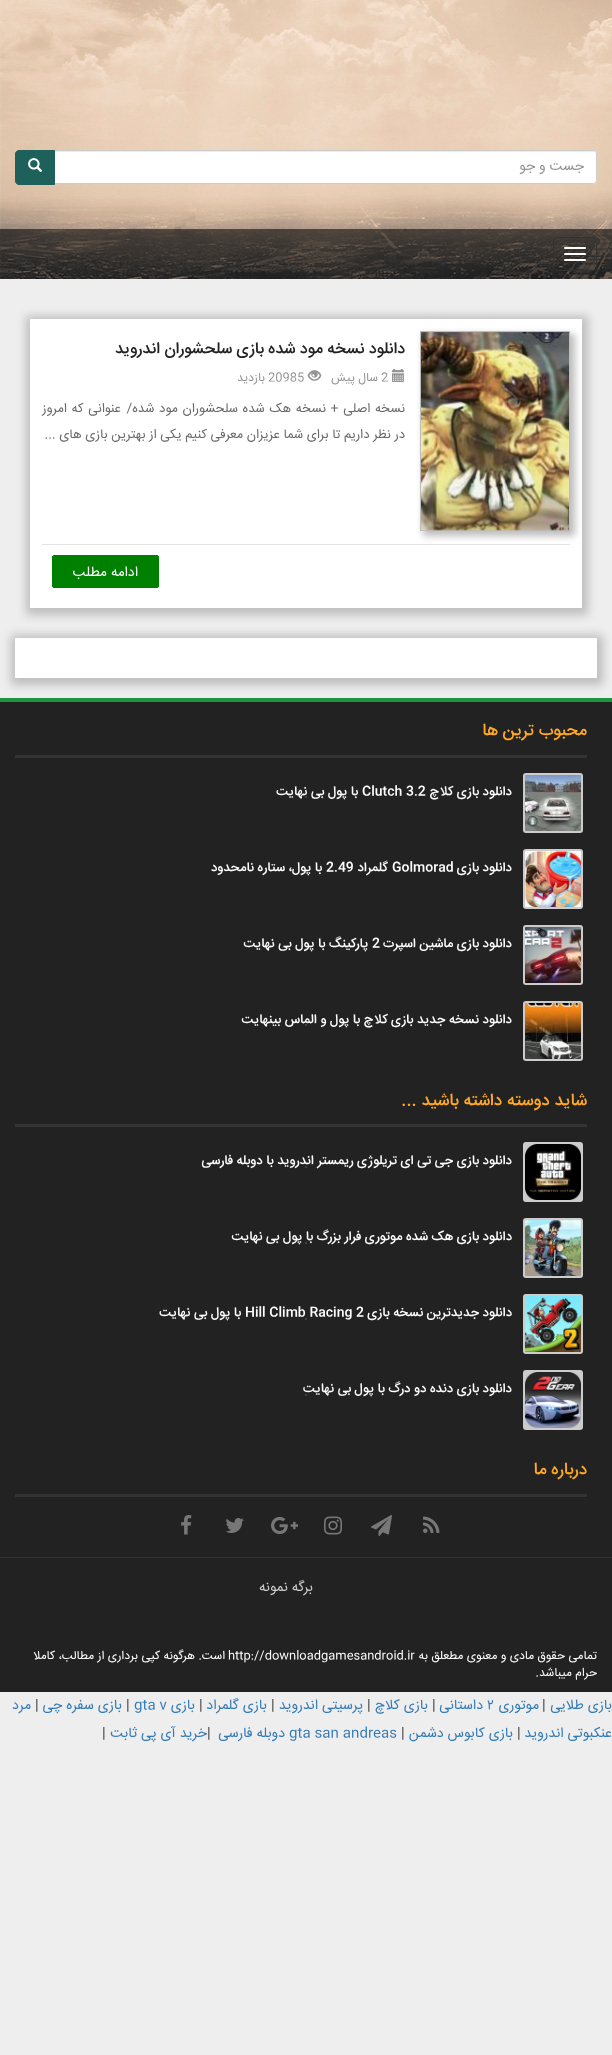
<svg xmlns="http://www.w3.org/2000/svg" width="612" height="2055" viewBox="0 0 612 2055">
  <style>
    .t1 { font: 14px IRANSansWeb; direction: rtl; fill: #949494; }
    .t2 { font: 500 16px IRANSansWeb; direction: rtl; fill: #232222; }
    .t3 { font: 12px IRANSansWeb; fill: #949494; }
    .t4 { font: 12px IRANSansWeb; direction: rtl; fill: #949494; }
    .t5 { font: 13px IRANSansWeb; direction: rtl; fill: #6a6a6a; }
    .t6 { font: 14px IRANSansWeb; direction: rtl; fill: #fff; }
    .t7 { font: 500 17px IRANSansWeb; direction: rtl; fill: #ffa726; }
    .t8 { font: 500 13px IRANSansWeb; direction: rtl; fill: #fff; }
    .t9 { font: 500 13px IRANSansWeb; fill: #fff; }
    .t10 { font: 14px IRANSansWeb; direction: rtl; fill: #ccc; }
    .t11 { font: 12px IRANSansWeb; direction: rtl; fill: #fff; }
    .t12 { font: 12px IRANSansWeb; fill: #fff; }
    .t13 { font: 14px IRANSansWeb; direction: rtl; fill: #337ab7; }
    .t14 { font: 14px IRANSansWeb; fill: #333; }
    .t15 { font: 14px IRANSansWeb; fill: #337ab7; }
  </style>
  <rect width="100%" height="100%" fill="#eee"/>
  <image x="0" y="0" width="612" height="279" href="images/1.png"/>
  <path d="M54 150H593C595 150 597 152 597 154V180C597 182 595 184 593 184H54Z" fill="#fff"/>
  <path d="M55 152H593C595 152 596 153 596 155C596 153 595 151 593 151H55Z" fill="#ececec"/>
  <path d="M54.5 150.5H593C595 150.5 596.5 152 596.5 154V180C596.5 182 595 183.5 593 183.5H54.5Z" fill="none" stroke="#ccc"/>
  <text x="584" y="170" class="t1">جست و جو</text>
  <path d="M19 150.5H54.5V184.5H19C17 184.5 15.5 183 15.5 181V154C15.5 152 17 150.5 19 150.5Z" fill="#1e615b" stroke="#1e615b"/>
  <image x="28" y="158" width="15" height="14" href="images/2.png"/>
  <rect x="0" y="229" width="612" height="50" fill="#0000008f"/>
  <rect x="553.5" y="237.5" width="43" height="33" rx="3.5" fill="none" stroke="#333"/>
  <rect x="564" y="247" width="22" height="2" rx="1" fill="#fff"/>
  <rect x="564" y="253" width="22" height="2" rx="1" fill="#fff"/>
  <rect x="564" y="259" width="22" height="2" rx="1" fill="#fff"/>
  <rect x="26" y="316" width="562" height="299" fill="#00000033" filter="blur(5px)"/>
  <rect x="30" y="319" width="552" height="289" fill="#fff"/>
  <rect x="42" y="544" width="528" height="1" fill="#e3e4e5"/>
  <rect x="423" y="334" width="152" height="202" fill="#bdbdbd" filter="blur(3.5px)"/>
  <rect x="420.5" y="331.5" width="149" height="199" fill="none" stroke="#bdbdbd"/>
  <image x="421" y="332" width="148" height="199" href="images/3.png"/>
  <text x="405" y="353" class="t2">دانلود نسخه مود شده بازی سلحشوران اندروید</text>
  <image x="392" y="369" width="12" height="13" href="images/4.png"/>
  <text x="381" y="381" class="t3">2</text>
  <text x="378" y="381" class="t4">سال پیش</text>
  <image x="307" y="370" width="15" height="11" href="images/5.png"/>
  <text x="268" y="381" class="t3">20985</text>
  <text x="265" y="381" class="t4">بازديد</text>
  <text x="405" y="412" word-spacing="1" class="t5">نسخه اصلی + نسخه هک شده سلحشوران مود شده/</text>
  <text x="121" y="412" word-spacing="1" class="t5">عنوانی که امروز</text>
  <text x="405" y="438" class="t5">در نظر داریم تا برای شما عزیزان معرفی کنیم یکی از بهترین بازی های ...</text>
  <rect x="52.5" y="555.5" width="106" height="32" rx="1.5" fill="#008000" stroke="#008000"/>
  <text x="138" y="576" class="t6">ادامه مطلب</text>
  <rect x="0" y="698" width="612" height="4" fill="#1c9440"/>
  <rect x="11" y="635" width="592" height="50" fill="#00000033" filter="blur(5px)"/>
  <rect x="15" y="638" width="582" height="40" fill="#fff"/>
  <rect x="0" y="702" width="612" height="990" fill="#222"/>
  <rect x="15" y="755" width="572" height="3" fill="#333"/>
  <text x="587" y="735" class="t7">محبوب ترین ها</text>
  <path d="M526 773H580C582 773 583 774 583 776V830C583 832 582 833 580 833H526C524 833 523 832 523 830V776C523 774 524 773 526 773Z" fill="#ccc"/>
  <image x="525" y="775" width="56" height="56" href="images/6.png"/>
  <text x="512" y="795" class="t8">دانلود بازی کلاچ</text>
  <text x="362" y="795" class="t9">Clutch 3.2</text>
  <circle cx="306" cy="797" r="1" fill="#4e4e4e"/>
  <text x="358" y="795" class="t8">با پول بی نهایت</text>
  <path d="M526 849H580C582 849 583 850 583 852V906C583 908 582 909 580 909H526C524 909 523 908 523 906V852C523 850 524 849 526 849Z" fill="#ccc"/>
  <image x="525" y="851" width="56" height="56" href="images/7.png"/>
  <text x="512" y="871" class="t8">دانلود بازی</text>
  <text x="392" y="871" class="t9">Golmorad</text>
  <text x="388" y="871" class="t8">گلمراد</text>
  <text x="326" y="871" class="t9">2.49</text>
  <circle cx="306" cy="873" r="1" fill="#4e4e4e"/>
  <text x="322" y="871" class="t8">با پول، ستاره نامحدود</text>
  <path d="M526 925H580C582 925 583 926 583 928V982C583 984 582 985 580 985H526C524 985 523 984 523 982V928C523 926 524 925 526 925Z" fill="#ccc"/>
  <image x="525" y="927" width="56" height="56" href="images/8.png"/>
  <text x="512" y="947" class="t8">دانلود بازی ماشین اسپرت</text>
  <text x="372" y="947" class="t9">2</text>
  <circle cx="306" cy="949" r="1" fill="#4e4e4e"/>
  <text x="368" y="947" class="t8">پارکینگ با پول بی نهایت</text>
  <path d="M526 1001H580C582 1001 583 1002 583 1004V1058C583 1060 582 1061 580 1061H526C524 1061 523 1060 523 1058V1004C523 1002 524 1001 526 1001Z" fill="#ccc"/>
  <image x="525" y="1003" width="56" height="56" href="images/9.png"/>
  <circle cx="306" cy="1025" r="1" fill="#4e4e4e"/>
  <text x="512" y="1023" class="t8">دانلود نسخه جدید بازی کلاچ با پول و الماس بینهایت</text>
  <rect x="15" y="1124" width="572" height="3" fill="#333"/>
  <text x="587" y="1105" class="t7">شاید دوسته داشته باشید ...</text>
  <path d="M526 1142H580C582 1142 583 1143 583 1145V1199C583 1201 582 1202 580 1202H526C524 1202 523 1201 523 1199V1145C523 1143 524 1142 526 1142Z" fill="#ccc"/>
  <image x="525" y="1144" width="56" height="56" href="images/10.png"/>
  <circle cx="306" cy="1167" r="1" fill="#4e4e4e"/>
  <text x="512" y="1164" class="t8">دانلود بازی جی تی ای تریلوژی ریمستر اندروید با دوبله فارسی</text>
  <path d="M526 1218H580C582 1218 583 1219 583 1221V1275C583 1277 582 1278 580 1278H526C524 1278 523 1277 523 1275V1221C523 1219 524 1218 526 1218Z" fill="#ccc"/>
  <image x="525" y="1220" width="56" height="56" href="images/11.png"/>
  <circle cx="306" cy="1243" r="1" fill="#4e4e4e"/>
  <text x="512" y="1240" class="t8">دانلود بازی هک شده موتوری فرار بزرگ با پول بی نهایت</text>
  <path d="M526 1294H580C582 1294 583 1295 583 1297V1351C583 1353 582 1354 580 1354H526C524 1354 523 1353 523 1351V1297C523 1295 524 1294 526 1294Z" fill="#ccc"/>
  <image x="525" y="1296" width="56" height="56" href="images/12.png"/>
  <text x="512" y="1316" class="t8">دانلود جدیدترین نسخه بازی</text>
  <circle cx="306" cy="1319" r="1" fill="#4e4e4e"/>
  <text x="245" y="1316" class="t9">Hill Climb Racing 2</text>
  <text x="241" y="1316" class="t8">با پول بی نهایت</text>
  <path d="M526 1370H580C582 1370 583 1371 583 1373V1427C583 1429 582 1430 580 1430H526C524 1430 523 1429 523 1427V1373C523 1371 524 1370 526 1370Z" fill="#ccc"/>
  <image x="525" y="1372" width="56" height="56" href="images/13.png"/>
  <circle cx="306" cy="1395" r="1" fill="#4e4e4e"/>
  <text x="512" y="1392" class="t8">دانلود بازی دنده دو درگ با پول بی نهایت</text>
  <rect x="15" y="1494" width="572" height="3" fill="#333"/>
  <text x="587" y="1474" class="t7">درباره ما</text>
  <image x="423" y="1516" width="17" height="17" href="images/14.png"/>
  <image x="371" y="1515" width="21" height="21" href="images/15.png"/>
  <image x="324" y="1516" width="18" height="19" href="images/16.png"/>
  <image x="271" y="1516" width="27" height="19" href="images/17.png"/>
  <image x="226" y="1518" width="18" height="15" href="images/18.png"/>
  <image x="181" y="1515" width="11" height="20" href="images/19.png"/>
  <rect x="0" y="1557" width="612" height="1" fill="#333"/>
  <text x="313" y="1591" class="t10">برگه نمونه</text>
  <text x="597" y="1659" class="t11">تمامی حقوق مادی و معنوی مطعلق به</text>
  <text x="228" y="1659" class="t12">http://downloadgamesandroid.ir</text>
  <text x="225" y="1659" class="t11">است. هرگونه کپی برداری از مطالب، کاملا</text>
  <text x="597" y="1676" class="t11">حرام میباشد.</text>
  <text x="612" y="1709" class="t13">بازی طلایی</text>
  <text x="542" y="1709" class="t14">|</text>
  <text x="539" y="1709" class="t13">موتوری</text>
  <text x="487" y="1709" class="t15">۲</text>
  <text x="483" y="1709" class="t13">داستانی</text>
  <text x="432" y="1709" class="t14">|</text>
  <text x="428" y="1709" class="t13">بازی کلاچ</text>
  <text x="367" y="1709" class="t14">|</text>
  <text x="363" y="1709" class="t13">پرسیتی اندروید</text>
  <text x="271" y="1709" class="t14">|</text>
  <text x="267" y="1709" class="t13">بازی گلمراد</text>
  <text x="199" y="1709" class="t14">|</text>
  <text x="195" y="1709" class="t13">بازی</text>
  <text x="134" y="1709" class="t15">gta v</text>
  <text x="126" y="1709" class="t14">|</text>
  <text x="122" y="1709" class="t13">بازی سفره چی</text>
  <text x="35" y="1709" class="t14">|</text>
  <text x="31" y="1709" class="t13">مرد</text>
  <text x="612" y="1737" class="t13">عنکبوتی اندروید</text>
  <text x="517" y="1737" class="t14">|</text>
  <text x="513" y="1737" class="t13">بازی کابوس دشمن</text>
  <text x="401" y="1737" class="t14">|</text>
  <text x="289" y="1737" class="t15">gta san andreas</text>
  <text x="285" y="1737" class="t13">دوبله فارسی</text>
  <text x="207" y="1737" class="t14">|</text>
  <text x="207" y="1737" class="t13">خرید آی پی ثابت</text>
  <text x="102" y="1737" class="t14">|</text>
</svg>
